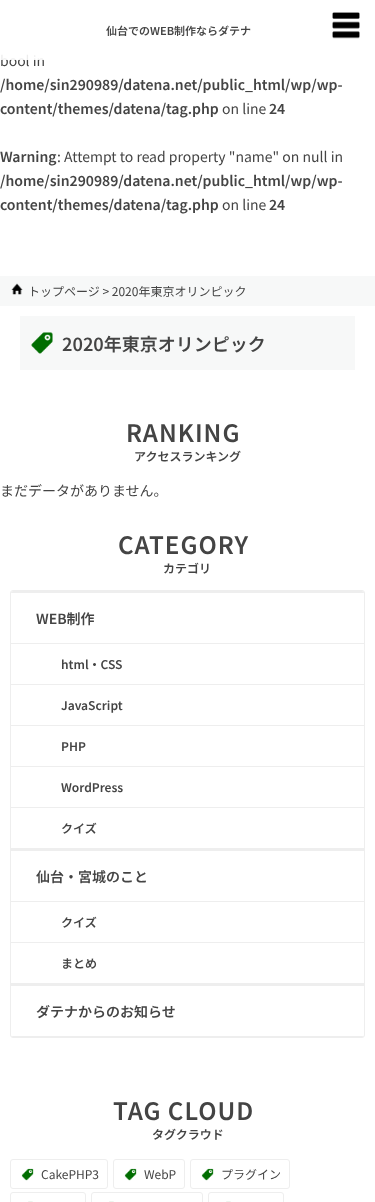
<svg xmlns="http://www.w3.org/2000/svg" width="375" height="1202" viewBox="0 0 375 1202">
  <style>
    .t1 { font: 14px Noto Sans JP; fill: #444; }
    .t2 { font: 600 11px Noto Sans JP; fill: #444; }
    .t3 { font: 600 14px Noto Sans JP; fill: #444; }
    .t4 { font: 12px Noto Sans JP; fill: #444; }
    .t5 { font: 600 18px Noto Sans JP; fill: #444; }
    .t6 { font: 600 24px Noto Sans JP; letter-spacing: 1px; fill: #444; }
    .t7 { font: 600 12px Noto Sans JP; fill: #444; }
  </style>
  <defs>
    <clipPath id="clip1"><rect x="11" y="591" width="353" height="446" rx="2"/></clipPath>
  </defs>
  <rect width="100%" height="100%" fill="#fff"/>
  <text x="0" y="66" class="t1">bool in</text>
  <rect x="1" y="54" width="43" height="6" fill="#ffffffe6"/>
  <text x="106" y="35" class="t2">仙台でのWEB制作ならダテナ</text>
  <image x="332" y="12" width="28" height="27" href="images/1.png"/>
  <text x="0" y="90" class="t3">/home/sin290989/datena.net/public_html/wp/wp-</text>
  <text x="0" y="114" class="t3">content/themes/datena/tag.php</text>
  <text x="222" y="114" class="t1">on line</text>
  <text x="269" y="114" class="t3">24</text>
  <text x="0" y="162" class="t3">Warning</text>
  <text x="57" y="162" class="t1">: Attempt to read property "name" on null in</text>
  <text x="0" y="186" class="t3">/home/sin290989/datena.net/public_html/wp/wp-</text>
  <text x="0" y="210" class="t3">content/themes/datena/tag.php</text>
  <text x="222" y="210" class="t1">on line</text>
  <text x="269" y="210" class="t3">24</text>
  <rect x="0" y="276" width="375" height="30" fill="#f7f8f8"/>
  <image x="11" y="283" width="12" height="12" href="images/2.png"/>
  <text x="28" y="296" class="t4">トップページ &gt; 2020年東京オリンピック</text>
  <rect x="20" y="316" width="335" height="54" fill="#f7f8f8"/>
  <image x="31" y="332" width="22" height="22" href="images/3.png"/>
  <text x="62" y="351" class="t5">2020年東京オリンピック</text>
  <text x="126" y="442" class="t6">RANKING</text>
  <text x="134" y="461" class="t7">アクセスランキング</text>
  <text x="0" y="496" class="t1">まだデータがありません。</text>
  <text x="118" y="554" class="t6">CATEGORY</text>
  <text x="163" y="573" class="t7">カテゴリ</text>
  <rect x="10.5" y="590.5" width="354" height="447" rx="2.5" fill="none" stroke="#eee"/>
  <path d="M13 591H362C363 591 364 592 364 593H11C11 592 12 591 13 591Z" fill="#eee"/>
  <rect x="11" y="643" width="353" height="1" fill="#eee"/>
  <text x="36" y="624" class="t3">WEB制作</text>
  <rect x="11" y="684" width="353" height="1" fill="#eee"/>
  <text x="61" y="669" class="t7">html・CSS</text>
  <rect x="11" y="725" width="353" height="1" fill="#eee"/>
  <text x="61" y="710" class="t7">JavaScript</text>
  <rect x="11" y="766" width="353" height="1" fill="#eee"/>
  <text x="61" y="751" class="t7">PHP</text>
  <rect x="11" y="807" width="353" height="1" fill="#eee"/>
  <text x="61" y="792" class="t7">WordPress</text>
  <rect x="11" y="848" width="353" height="3" fill="#eee"/>
  <text x="61" y="833" class="t7">クイズ</text>
  <rect x="11" y="901" width="353" height="1" fill="#eee"/>
  <text x="36" y="882" class="t3">仙台・宮城のこと</text>
  <rect x="11" y="942" width="353" height="1" fill="#eee"/>
  <text x="61" y="927" class="t7">クイズ</text>
  <rect x="11" y="983" width="353" height="3" fill="#eee"/>
  <text x="61" y="968" class="t7">まとめ</text>
  <g clip-path="url(#clip1)">
    <rect x="11" y="1036" width="353" height="1" fill="#eee"/>
  </g>
  <text x="36" y="1017" class="t3">ダテナからのお知らせ</text>
  <text x="113" y="1120" class="t6">TAG CLOUD</text>
  <text x="152" y="1139" class="t7">タグクラウド</text>
  <image x="21" y="1168" width="13" height="13" href="images/4.png"/>
  <rect x="10.5" y="1159.5" width="97" height="29" rx="2.5" fill="none" stroke="#eee"/>
  <text x="41" y="1179" class="t4">CakePHP3</text>
  <image x="124" y="1168" width="13" height="13" href="images/4.png"/>
  <rect x="113.5" y="1159.5" width="71" height="29" rx="2.5" fill="none" stroke="#eee"/>
  <text x="144" y="1179" class="t4">WebP</text>
  <image x="201" y="1168" width="13" height="13" href="images/4.png"/>
  <rect x="190.5" y="1159.5" width="99" height="29" rx="2.5" fill="none" stroke="#eee"/>
  <text x="221" y="1179" class="t4">プラグイン</text>
  <image x="28" y="1201" width="5" height="1" href="images/5.png"/>
  <rect x="10.5" y="1192.5" width="75" height="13" rx="2.5" fill="none" stroke="#eee"/>
  <image x="109" y="1201" width="5" height="1" href="images/5.png"/>
  <rect x="91.5" y="1192.5" width="111" height="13" rx="2.5" fill="none" stroke="#eee"/>
  <image x="226" y="1201" width="5" height="1" href="images/5.png"/>
  <rect x="208.5" y="1192.5" width="75" height="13" rx="2.5" fill="none" stroke="#eee"/>
</svg>
